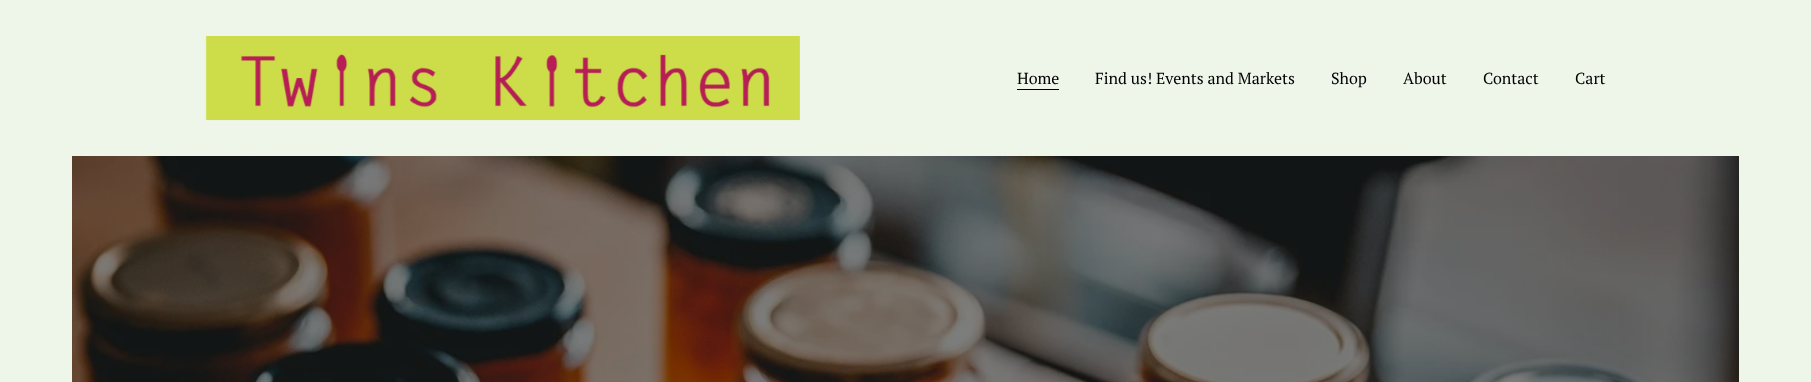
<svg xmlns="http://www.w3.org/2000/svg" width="1811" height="382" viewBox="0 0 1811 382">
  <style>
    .t1 { font: 16px PT Serif; fill: #000; }
  </style>
  <rect width="100%" height="100%" fill="#eef6ea"/>
  <image x="205" y="36" width="595" height="85" href="images/1.png"/>
  <rect x="1017" y="89" width="42" height="1" fill="#000"/>
  <text x="1017" y="84" class="t1">Home</text>
  <text x="1095" y="84" class="t1">Find us! Events and Markets</text>
  <text x="1331" y="84" class="t1">Shop</text>
  <text x="1403" y="84" class="t1">About</text>
  <text x="1483" y="84" class="t1">Contact</text>
  <text x="1575" y="84" class="t1">Cart</text>
  <image x="72" y="156" width="1667" height="226" href="images/2.png"/>
</svg>
